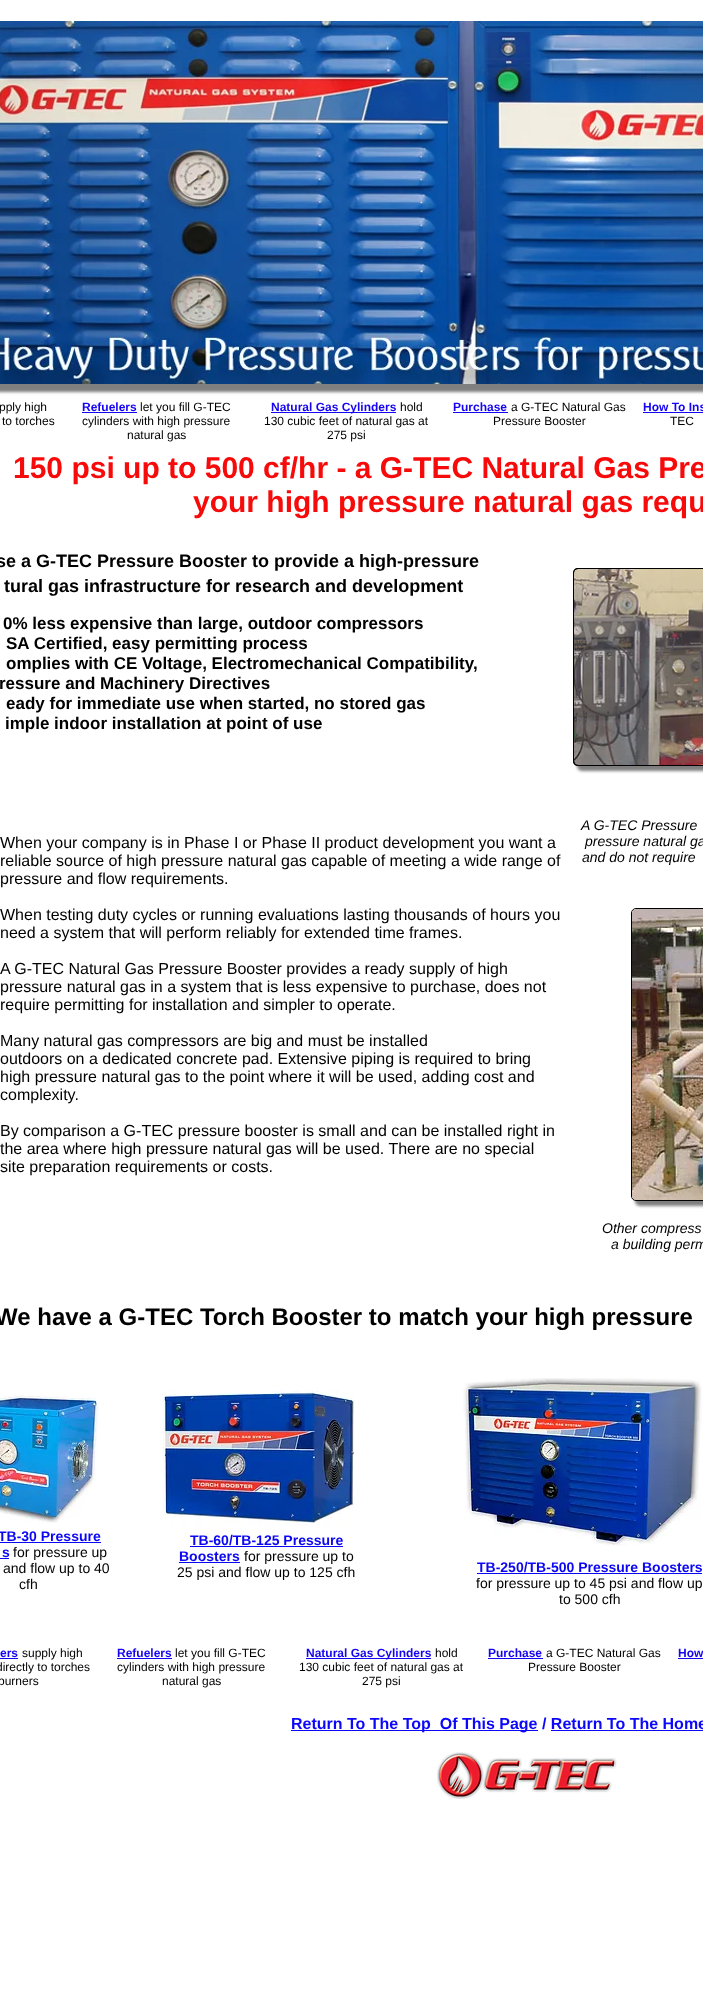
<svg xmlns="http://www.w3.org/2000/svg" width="703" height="1999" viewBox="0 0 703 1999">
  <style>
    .t1 { font: 12px Liberation Sans; fill: #000; }
    .t2 { font: bold 12px Liberation Sans; fill: #1505f2; }
    .t3 { font: bold 30px Liberation Sans; fill: #f70a0a; }
    .t4 { font: bold 18px Liberation Sans; fill: #000; }
    .t5 { font: bold 17px Liberation Sans; fill: #000; }
    .t6 { font: 16px Liberation Sans; fill: #000; }
    .t7 { font: italic 14px Liberation Sans; fill: #000; }
    .t8 { font: bold 24px Liberation Sans; fill: #000; }
    .t9 { font: bold 14px Liberation Sans; fill: #0b07f2; }
    .t10 { font: 14px Liberation Sans; fill: #000; }
    .t11 { font: bold 16px Liberation Sans; fill: #0c07fa; }
  </style>
  <rect width="100%" height="100%" fill="#fff"/>
  <rect x="-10" y="25" width="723" height="367" rx="5" fill="#00000080" filter="blur(1.5px)"/>
  <image x="0" y="21" width="703" height="363" href="images/1.png"/>
  <text x="-1" y="411" class="t1">pply high</text>
  <text x="2" y="425" class="t1">to torches</text>
  <text x="82" y="411" class="t2">Refuelers</text>
  <rect x="82" y="412" width="55" height="1" fill="#1505f2"/>
  <text x="140" y="411" class="t1">let you fill G-TEC</text>
  <text x="82" y="425" class="t1">cylinders with high pressure</text>
  <text x="127" y="439" class="t1">natural gas</text>
  <rect x="271" y="412" width="125" height="1" fill="#1505f2"/>
  <text x="271" y="411" class="t2">Natural Gas Cylinders</text>
  <text x="400" y="411" class="t1">hold</text>
  <text x="264" y="425" class="t1">130 cubic feet of natural gas at</text>
  <text x="327" y="439" class="t1">275 psi</text>
  <text x="453" y="411" class="t2">Purchase</text>
  <rect x="453" y="412" width="55" height="1" fill="#1505f2"/>
  <text x="511" y="411" class="t1">a G-TEC Natural Gas</text>
  <text x="493" y="425" class="t1">Pressure Booster</text>
  <text x="643" y="411" class="t2">How To Ins</text>
  <rect x="643" y="412" width="60" height="1" fill="#1505f2"/>
  <text x="670" y="425" class="t1">TEC</text>
  <text x="13" y="478" class="t3">150 psi up to 500 cf/hr - a G-TEC Natural Gas Pre</text>
  <text x="193" y="512" class="t3">your high pressure natural gas requ</text>
  <text x="-4" y="567" class="t4">se a G-TEC Pressure Booster to provide a high-pressure</text>
  <text x="4" y="592" class="t4">tural gas infrastructure for research and development</text>
  <rect x="577" y="573" width="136" height="198" rx="5" fill="#00000080" filter="blur(1.5px)"/>
  <path d="M578 568H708V766H578C575 766 573 764 573 761V573C573 570 575 568 578 568Z" fill="#000"/>
  <rect x="573.5" y="568.5" width="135" height="197" rx="4.5" fill="none" stroke="#000"/>
  <image x="574" y="569" width="129" height="196" href="images/2.png"/>
  <text x="3" y="629" class="t5">0% less expensive than large, outdoor compressors</text>
  <text x="6" y="649" class="t5">SA Certified, easy permitting process</text>
  <text x="6" y="669" class="t5">omplies with CE Voltage, Electromechanical Compatibility,</text>
  <text x="-1" y="689" class="t5">ressure and Machinery Directives</text>
  <text x="6" y="709" class="t5">eady for immediate use when started, no stored gas</text>
  <text x="5" y="729" class="t5">imple indoor installation at point of use</text>
  <text x="0" y="848" class="t6">When your company is in Phase I or Phase II product development you want a</text>
  <text x="0" y="866" class="t6">reliable source of high pressure natural gas capable of meeting a wide range of</text>
  <text x="0" y="884" class="t6">pressure and flow requirements.</text>
  <text x="0" y="920" class="t6">When testing duty cycles or running evaluations lasting thousands of hours you</text>
  <text x="0" y="938" class="t6">need a system that will perform reliably for extended time frames.</text>
  <text x="0" y="974" class="t6">A G-TEC Natural Gas Pressure Booster provides a ready supply of high</text>
  <text x="0" y="992" class="t6">pressure natural gas in a system that is less expensive to purchase, does not</text>
  <text x="0" y="1010" class="t6">require permitting for installation and simpler to operate.</text>
  <text x="0" y="1046" class="t6">Many natural gas compressors are big and must be installed</text>
  <text x="0" y="1064" class="t6">outdoors on a dedicated concrete pad. Extensive piping is required to bring</text>
  <text x="0" y="1082" class="t6">high pressure natural gas to the point where it will be used, adding cost and</text>
  <text x="0" y="1100" class="t6">complexity.</text>
  <text x="0" y="1136" class="t6">By comparison a G-TEC pressure booster is small and can be installed right in</text>
  <text x="0" y="1154" class="t6">the area where high pressure natural gas will be used. There are no special</text>
  <text x="0" y="1172" class="t6">site preparation requirements or costs.</text>
  <text x="581" y="830" class="t7">A G-TEC Pressure</text>
  <text x="585" y="846" class="t7">pressure natural ga</text>
  <text x="582" y="862" class="t7">and do not require</text>
  <rect x="635" y="913" width="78" height="293" rx="5" fill="#00000080" filter="blur(1.5px)"/>
  <rect x="631.5" y="908.5" width="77" height="292" rx="4.5" fill="none" stroke="#000"/>
  <image x="632" y="909" width="71" height="291" href="images/3.png"/>
  <text x="602" y="1233" class="t7">Other compress</text>
  <text x="611" y="1249" class="t7">a building perm</text>
  <text x="-5" y="1325" class="t8">We have a G-TEC Torch Booster to match your high pressure</text>
  <image x="0" y="1395" width="100" height="128" href="images/4.png"/>
  <image x="162" y="1390" width="192" height="136" href="images/5.png"/>
  <image x="463" y="1378" width="239" height="168" href="images/6.png"/>
  <text x="-2" y="1541" class="t9">TB-30 Pressure</text>
  <rect x="0" y="1542" width="101" height="1" fill="#0b07f2"/>
  <text x="2" y="1557" class="t9">s</text>
  <rect x="0" y="1558" width="9" height="1" fill="#0b07f2"/>
  <text x="13" y="1557" class="t10">for pressure up</text>
  <text x="3" y="1573" class="t10">and flow up to 40</text>
  <text x="19" y="1589" class="t10">cfh</text>
  <text x="190" y="1545" class="t9">TB-60/TB-125 Pressure</text>
  <rect x="190" y="1546" width="153" height="1" fill="#0b07f2"/>
  <text x="179" y="1561" class="t9">Boosters</text>
  <rect x="179" y="1562" width="61" height="1" fill="#0b07f2"/>
  <text x="244" y="1561" class="t10">for pressure up to</text>
  <text x="177" y="1577" class="t10">25 psi and flow up to 125 cfh</text>
  <text x="477" y="1572" class="t9">TB-250/TB-500 Pressure Boosters</text>
  <rect x="477" y="1573" width="225" height="1" fill="#0b07f2"/>
  <text x="476" y="1588" class="t10">for pressure up to 45 psi and flow up</text>
  <text x="559" y="1604" class="t10">to 500 cfh</text>
  <text x="0" y="1657" class="t2">ers</text>
  <rect x="0" y="1658" width="18" height="1" fill="#1505f2"/>
  <text x="22" y="1657" class="t1">supply high</text>
  <text x="-4" y="1671" class="t1">directly to torches</text>
  <text x="-2" y="1685" class="t1">burners</text>
  <text x="117" y="1657" class="t2">Refuelers</text>
  <rect x="117" y="1658" width="55" height="1" fill="#1505f2"/>
  <text x="175" y="1657" class="t1">let you fill G-TEC</text>
  <text x="117" y="1671" class="t1">cylinders with high pressure</text>
  <text x="162" y="1685" class="t1">natural gas</text>
  <rect x="306" y="1658" width="125" height="1" fill="#1505f2"/>
  <text x="306" y="1657" class="t2">Natural Gas Cylinders</text>
  <text x="435" y="1657" class="t1">hold</text>
  <text x="299" y="1671" class="t1">130 cubic feet of natural gas at</text>
  <text x="362" y="1685" class="t1">275 psi</text>
  <text x="488" y="1657" class="t2">Purchase</text>
  <rect x="488" y="1658" width="55" height="1" fill="#1505f2"/>
  <text x="546" y="1657" class="t1">a G-TEC Natural Gas</text>
  <text x="528" y="1671" class="t1">Pressure Booster</text>
  <text x="678" y="1657" class="t2">How</text>
  <rect x="678" y="1658" width="25" height="1" fill="#1505f2"/>
  <rect x="291" y="1730" width="247" height="1" fill="#0c07fa"/>
  <text x="291" y="1729" class="t11" xml:space="preserve">Return To The Top  Of This Page / Return To The Home</text>
  <rect x="551" y="1730" width="152" height="1" fill="#0c07fa"/>
  <image x="437" y="1752" width="180" height="47" href="images/7.png"/>
</svg>
